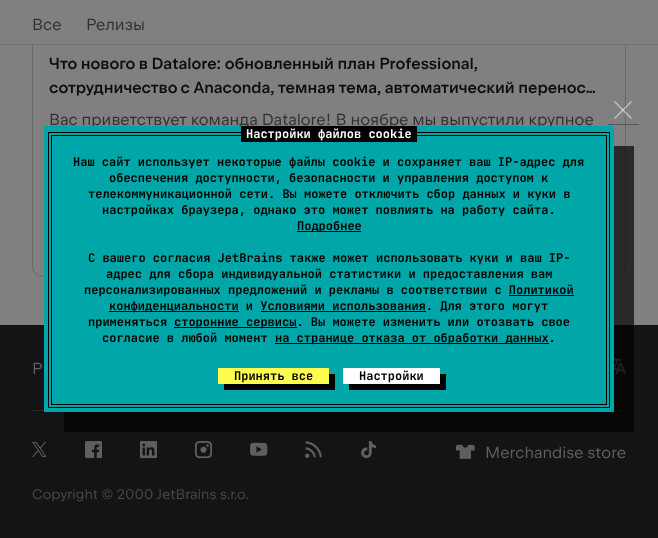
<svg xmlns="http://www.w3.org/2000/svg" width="658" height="538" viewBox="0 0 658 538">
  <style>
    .t1 { font: 16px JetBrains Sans; fill: #2f2f30; }
    .t2 { font: 600 16px JetBrains Sans; fill: #0d0d0e; }
    .t3 { font: 16px JetBrains Sans; fill: #5f6060; }
    .t4 { font: 14px JetBrains Sans; fill: #4a4a4b; }
    .t5 { font: bold 12px JetBrains Mono; fill: #fff; }
    .t6 { font: bold 12px JetBrains Mono; fill: #000; }
  </style>
  <rect width="100%" height="100%" fill="#808080"/>
  <rect x="32.5" y="-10.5" width="593" height="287" rx="9.5" fill="none" stroke="#696969"/>
  <rect x="32" y="0" width="594" height="44" fill="#808080"/>
  <text x="32" y="30" class="t1">Все</text>
  <text x="86" y="30" class="t1">Релизы</text>
  <rect x="0" y="44" width="658" height="1" fill="#707070"/>
  <text x="49" y="69" class="t2">Что нового в Datalore: обновленный план Professional,</text>
  <text x="49" y="93" class="t2">сотрудничество с Anaconda, темная тема, автоматический перенос…</text>
  <text x="49" y="125" class="t1">Вас приветствует команда Datalore! В ноябре мы выпустили крупное</text>
  <rect x="0" y="325" width="658" height="213" fill="#141416"/>
  <rect x="32" y="410" width="594" height="1" fill="#292a2b"/>
  <text x="32" y="374" class="t3">P</text>
  <image x="614" y="357" width="12" height="18" href="images/1.png"/>
  <image x="32" y="441" width="15" height="16" href="images/2.png"/>
  <image x="85" y="441" width="17" height="18" href="images/3.png"/>
  <image x="140" y="441" width="17" height="18" href="images/4.png"/>
  <image x="195" y="441" width="17" height="18" href="images/5.png"/>
  <image x="250" y="442" width="18" height="14" href="images/6.png"/>
  <image x="305" y="441" width="17" height="17" href="images/7.png"/>
  <image x="361" y="441" width="15" height="18" href="images/8.png"/>
  <image x="456" y="444" width="19" height="15" href="images/9.png"/>
  <text x="485" y="458" class="t3">Merchandise store</text>
  <text x="32" y="499" class="t4">Copyright © 2000 JetBrains s.r.o.</text>
  <path d="M64 412V432H634V146H614V412Z" fill="#000000ad"/>
  <rect x="44" y="126" width="570" height="286" fill="#01a7a8"/>
  <rect x="608" y="124" width="31" height="1" fill="#19191c66"/>
  <path d="M614 118L631 101L632 102L615 119Z" fill="#ffffff80"/>
  <path d="M615 101L632 118L631 119L614 102Z" fill="#ffffff80"/>
  <rect x="51" y="135" width="556" height="1" fill="#000"/>
  <rect x="606" y="135" width="1" height="270" fill="#000"/>
  <rect x="51" y="135" width="1" height="233" fill="#000"/>
  <rect x="48" y="132" width="562" height="1" fill="#000"/>
  <rect x="241" y="126" width="176" height="16" fill="#000"/>
  <text x="246" y="138" class="t5">Настройки файлов cookie</text>
  <rect x="609" y="132" width="1" height="276" fill="#000"/>
  <rect x="48" y="132" width="1" height="235" fill="#000"/>
  <text x="73" y="166" class="t6">Наш сайт использует некоторые файлы cookie и сохраняет ваш IP-адрес для</text>
  <text x="109" y="182" class="t6">обеспечения доступности, безопасности и управления доступом к</text>
  <text x="88" y="198" class="t6">телекоммуникационной сети. Вы можете отключить сбор данных и куки в</text>
  <text x="102" y="214" class="t6">настройках браузера, однако это может повлиять на работу сайта.</text>
  <rect x="297" y="231" width="64" height="1" fill="#000"/>
  <text x="297" y="230" class="t6">Подробнее</text>
  <text x="88" y="262" class="t6">С вашего согласия JetBrains также может использовать куки и ваш IP-</text>
  <text x="106" y="278" class="t6">адрес для сбора индивидуальной статистики и предоставления вам</text>
  <text x="84" y="294" class="t6">персонализированных предложений и рекламы в соответствии с Политикой</text>
  <rect x="109" y="311" width="130" height="1" fill="#000"/>
  <text x="109" y="310" class="t6">конфиденциальности и Условиями использования. Для этого могут</text>
  <rect x="509" y="295" width="65" height="1" fill="#000"/>
  <rect x="261" y="311" width="165" height="1" fill="#000"/>
  <text x="88" y="326" class="t6">применяться</text>
  <rect x="174" y="327" width="123" height="1" fill="#000"/>
  <text x="174" y="326" class="t6">сторонние сервисы. Вы можете изменить или отозвать свое</text>
  <text x="102" y="342" class="t6">согласие в любой момент</text>
  <rect x="275" y="343" width="274" height="1" fill="#000"/>
  <text x="275" y="342" class="t6">на странице отказа от обработки данных.</text>
  <rect x="51" y="404" width="556" height="1" fill="#000"/>
  <rect x="51" y="368" width="1" height="37" fill="#000"/>
  <rect x="48" y="407" width="562" height="1" fill="#000"/>
  <rect x="48" y="367" width="1" height="41" fill="#000"/>
  <path d="M224 384V390H335V374H329V384Z" fill="#000"/>
  <rect x="218" y="368" width="111" height="16" fill="#fefc4f"/>
  <text x="234" y="380" class="t6">Принять все</text>
  <path d="M349 384V390H446V374H440V384Z" fill="#000"/>
  <rect x="343" y="368" width="97" height="16" fill="#fff"/>
  <text x="359" y="380" class="t6">Настройки</text>
</svg>
